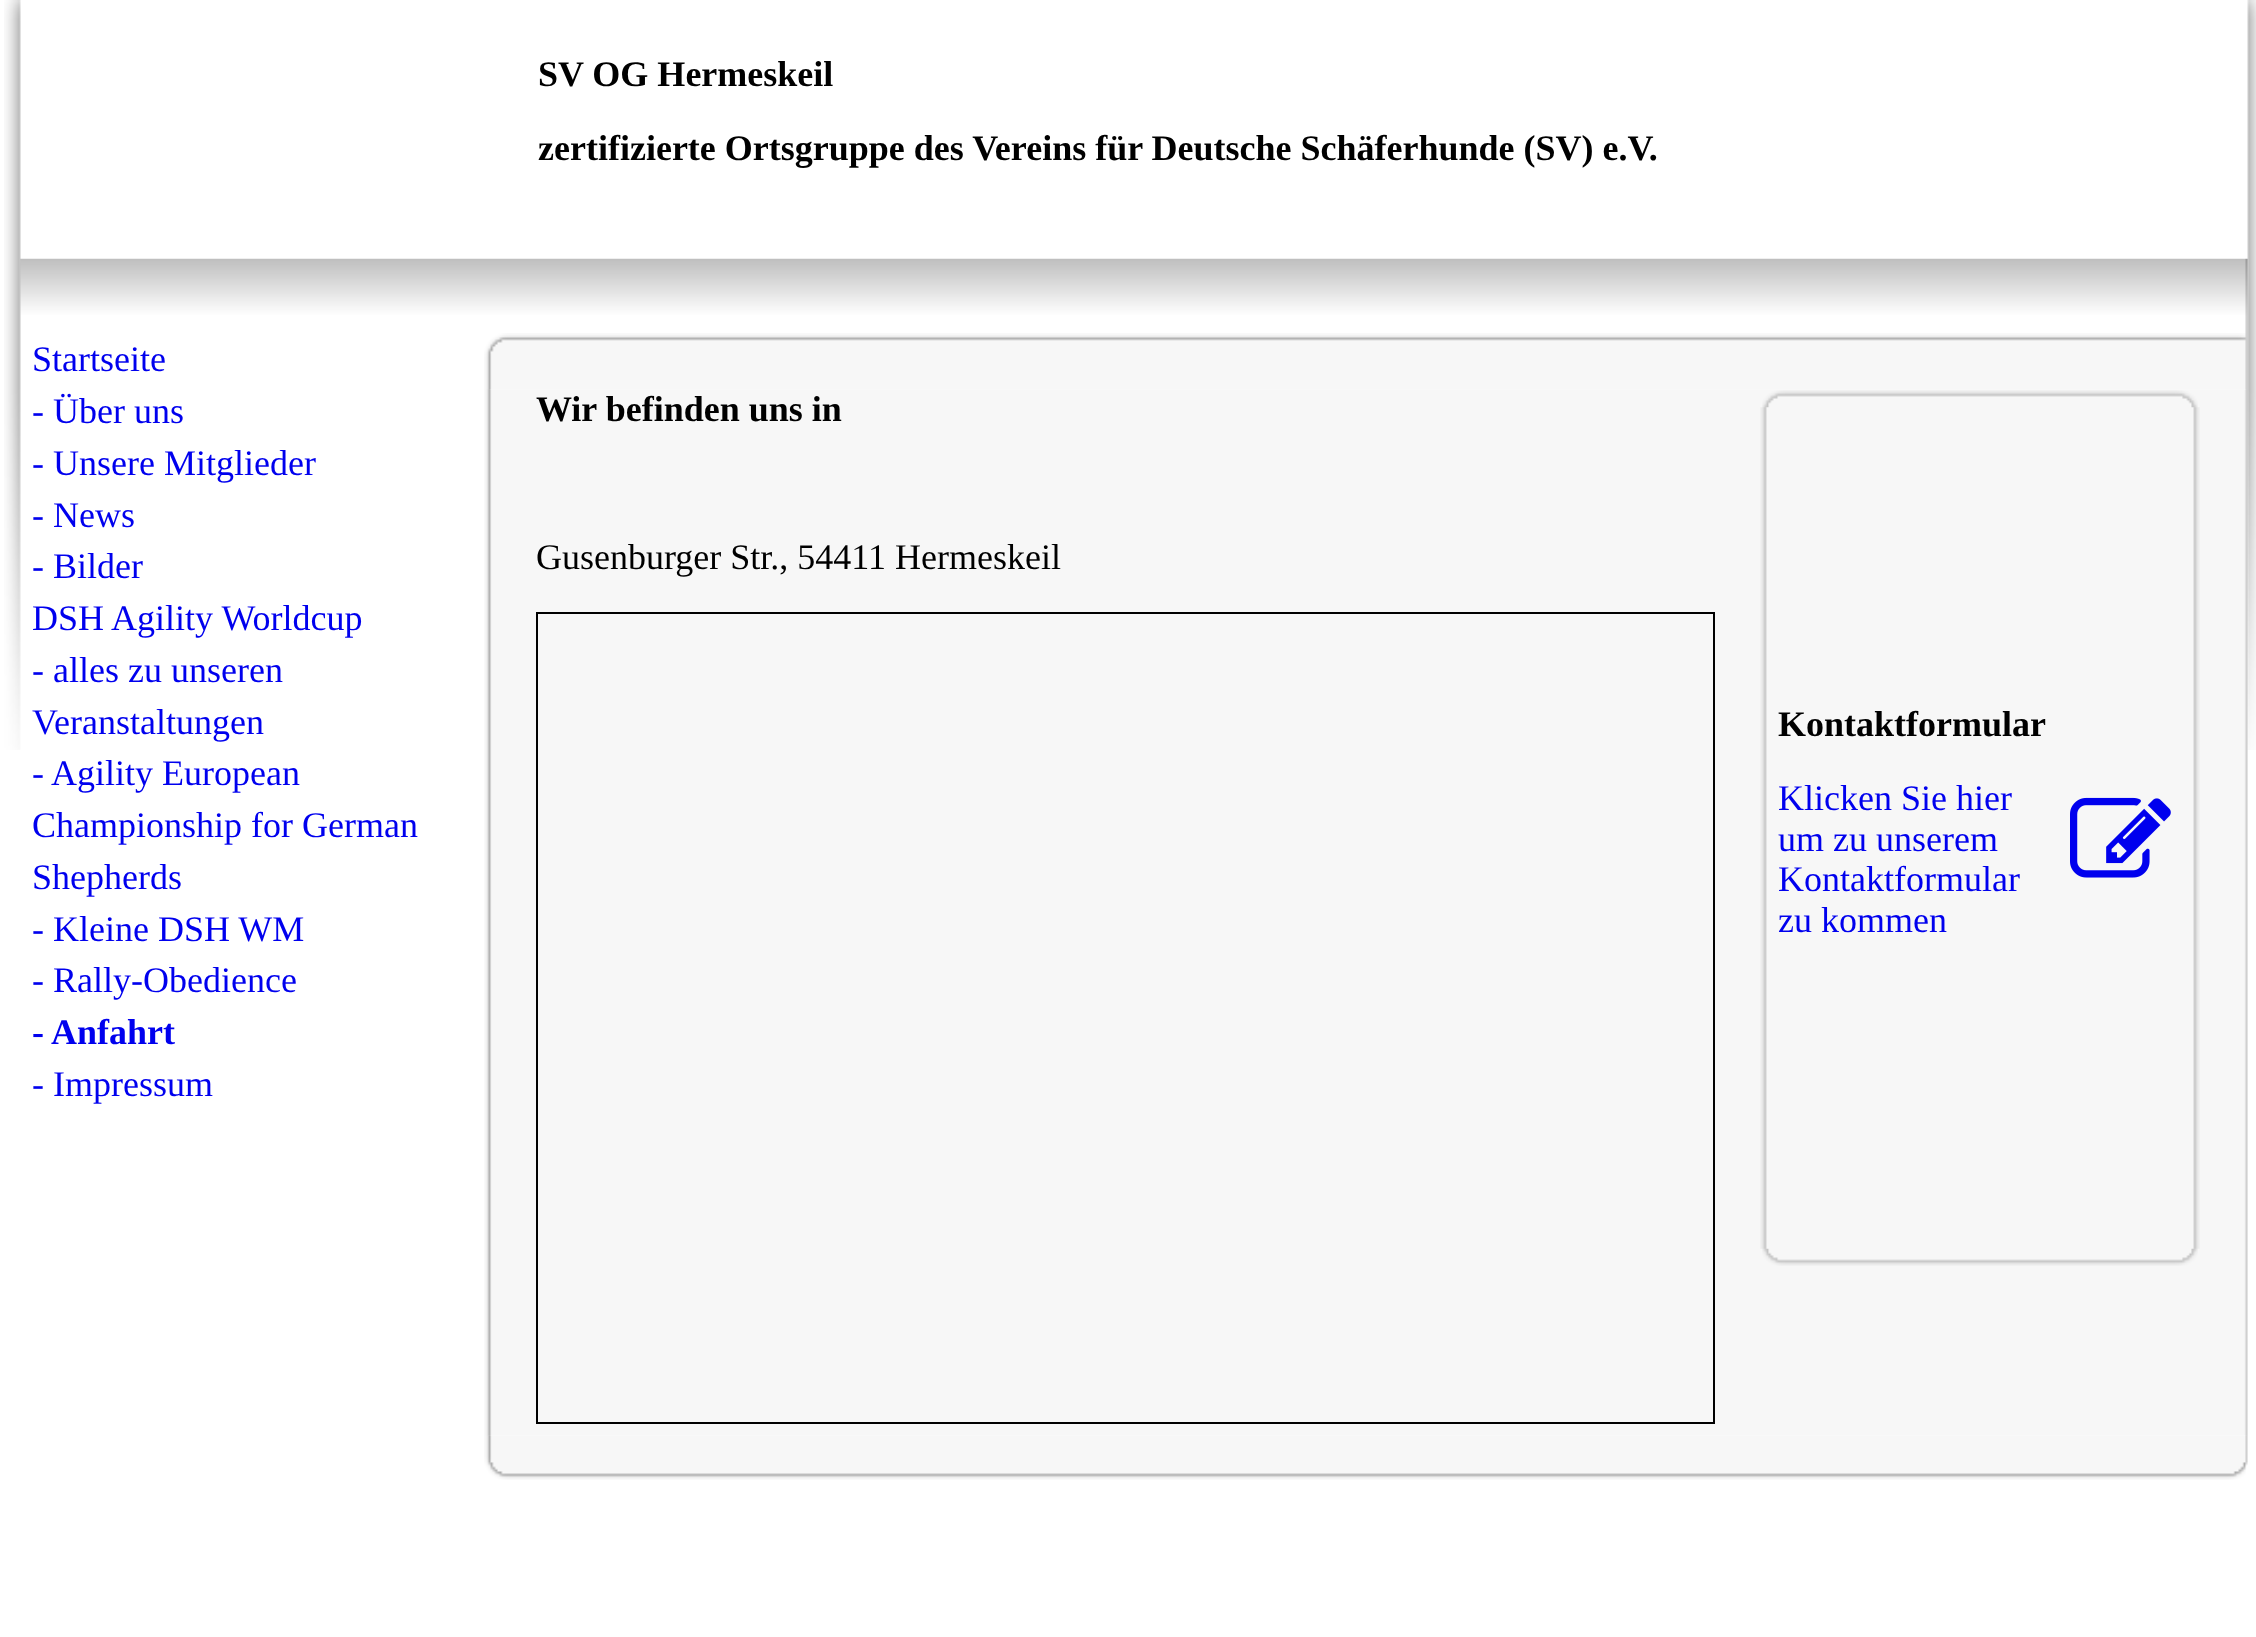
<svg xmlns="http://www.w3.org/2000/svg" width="2256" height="1637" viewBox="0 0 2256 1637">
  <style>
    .t1 { font: bold 36px Liberation Serif; fill: #000; }
    .t2 { font: 36px Liberation Serif; fill: #00e; }
    .t3 { font: bold 36px Liberation Serif; fill: #00e; }
    .t4 { font: 36px Liberation Serif; fill: #000; }
  </style>
  <rect width="100%" height="100%" fill="#fff"/>
  <image x="4" y="0" width="2252" height="750" href="images/1.png"/>
  <text x="538" y="86" class="t1">SV OG Hermeskeil</text>
  <text x="538" y="160" class="t1">zertifizierte Ortsgruppe des Vereins für Deutsche Schäferhunde (SV) e.V.</text>
  <image x="20" y="258" width="2228" height="75" href="images/2.png"/>
  <text x="32" y="371" class="t2">Startseite</text>
  <text x="32" y="423" class="t2">- Über uns</text>
  <text x="32" y="475" class="t2">- Unsere Mitglieder</text>
  <text x="32" y="527" class="t2">- News</text>
  <text x="32" y="578" class="t2">- Bilder</text>
  <text x="32" y="630" class="t2">DSH Agility Worldcup</text>
  <text x="32" y="682" class="t2">- alles zu unseren</text>
  <text x="32" y="734" class="t2">Veranstaltungen</text>
  <text x="32" y="785" class="t2">- Agility European</text>
  <text x="32" y="837" class="t2">Championship for German</text>
  <text x="32" y="889" class="t2">Shepherds</text>
  <text x="32" y="941" class="t2">- Kleine DSH WM</text>
  <text x="32" y="992" class="t2">- Rally-Obedience</text>
  <text x="32" y="1044" class="t3">- Anfahrt</text>
  <text x="32" y="1096" class="t2">- Impressum</text>
  <image x="484" y="389" width="1764" height="1047" href="images/4.png"/>
  <image x="484" y="333" width="1764" height="57" href="images/3.png"/>
  <text x="536" y="421" class="t1">Wir befinden uns in</text>
  <text x="536" y="569" class="t4">Gusenburger Str., 54411 Hermeskeil</text>
  <rect x="537" y="613" width="1177" height="810" fill="none" stroke="#000" stroke-width="2"/>
  <image x="1760" y="407" width="440" height="842" href="images/6.png"/>
  <image x="1762" y="390" width="436" height="18" href="images/5.png"/>
  <text x="1778" y="736" class="t1">Kontaktformular</text>
  <text x="1778" y="810" class="t2">Klicken Sie hier</text>
  <text x="1778" y="851" class="t2">um zu unserem</text>
  <text x="1778" y="891" class="t2">Kontaktformular</text>
  <text x="1778" y="932" class="t2">zu kommen</text>
  <image x="2070" y="797" width="101" height="81" href="images/7.png"/>
  <image x="1762" y="1248" width="436" height="18" href="images/8.png"/>
  <image x="484" y="1435" width="1764" height="45" href="images/9.png"/>
</svg>
